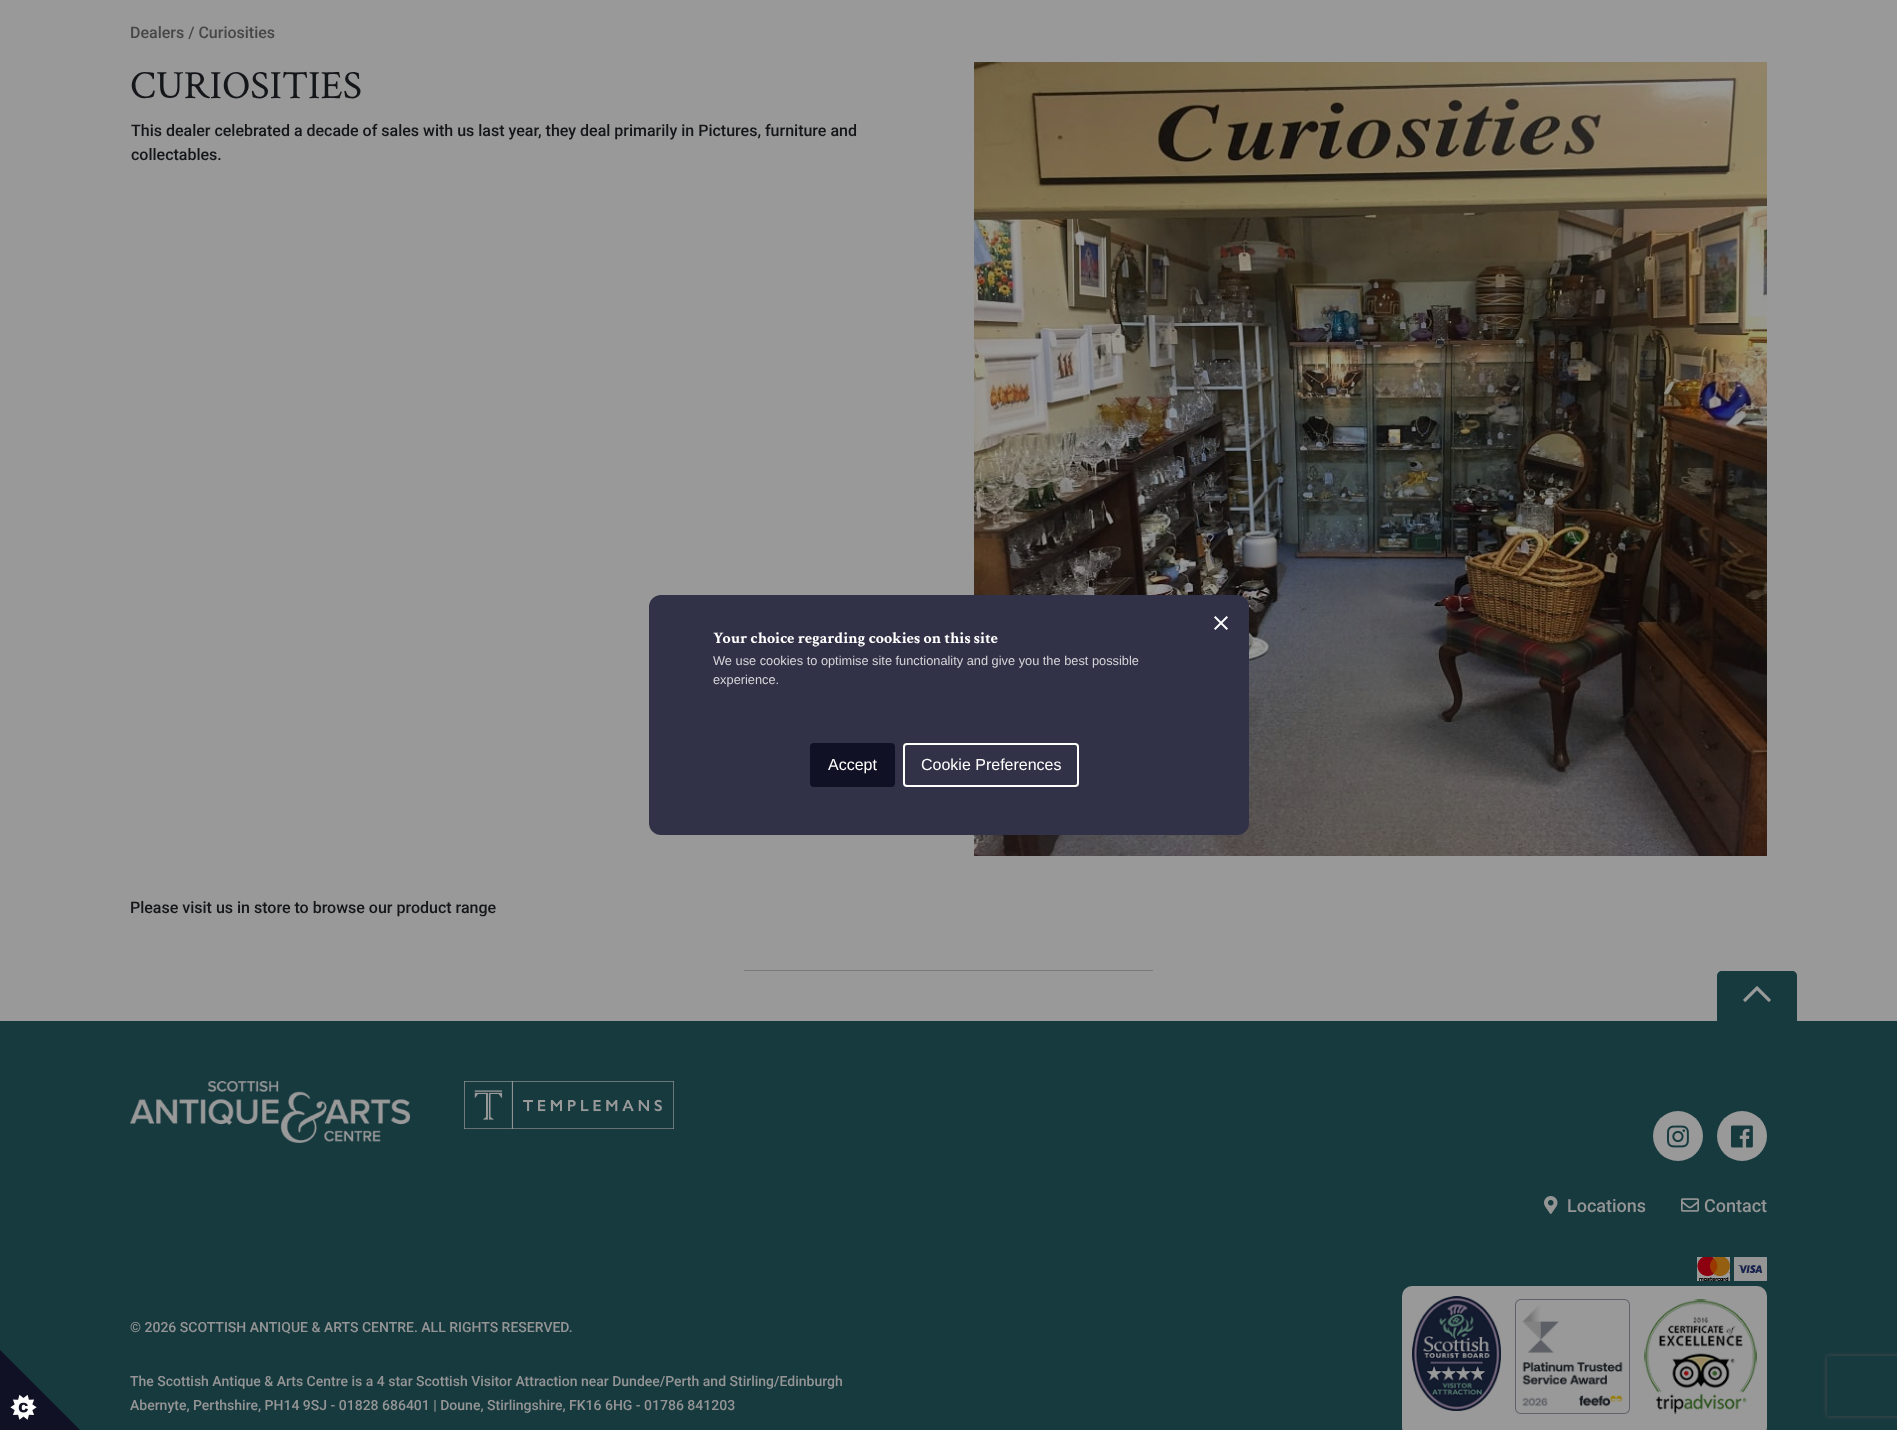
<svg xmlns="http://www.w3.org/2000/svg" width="1897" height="1430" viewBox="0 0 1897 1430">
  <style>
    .t1 { font: 500 16px Roboto; fill: #474747; }
    .t2 { font: 40px Crimson Text; fill: #141619; }
    .t3 { font: 500 16px Roboto; fill: #141619; }
    .t4 { font: bold 16px Crimson Text; fill: #fff; }
    .t5 { font: 12.8px Liberation Sans; fill: #d6d6da; }
    .t6 { font: 16px Liberation Sans; fill: #fff; }
    .t7 { font: 500 18px Roboto; fill: #959596; }
    .t8 { font: 500 14px Roboto; fill: #959596; }
  </style>
  <defs>
    <clipPath id="clip1"><path d="M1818 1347H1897V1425H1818ZM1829 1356H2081C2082 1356 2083 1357 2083 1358V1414C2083 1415 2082 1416 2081 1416H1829C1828 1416 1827 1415 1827 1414V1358C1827 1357 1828 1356 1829 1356Z" clip-rule="evenodd"/></clipPath>
  </defs>
  <rect width="100%" height="100%" fill="#999"/>
  <text x="130" y="38" class="t1">Dealers / Curiosities</text>
  <text x="130" y="98" class="t2">CURIOSITIES</text>
  <text x="131" y="136" class="t3">This dealer celebrated a decade of sales with us last year, they deal primarily in Pictures, furniture and</text>
  <text x="131" y="160" class="t3">collectables.</text>
  <image x="974" y="62" width="793" height="794" href="images/1.png"/>
  <text x="130" y="913" class="t3">Please visit us in store to browse our product range</text>
  <rect x="744" y="970" width="409" height="1" fill="#7a7a7a"/>
  <rect x="649" y="595" width="600" height="240" rx="12" fill="#313147"/>
  <image x="1214" y="616" width="14" height="14" href="images/2.png"/>
  <text x="713" y="643" class="t4">Your choice regarding cookies on this site</text>
  <text x="713" y="665" class="t5">We use cookies to optimise site functionality and give you the best possible</text>
  <text x="713" y="684" class="t5">experience.</text>
  <rect x="811" y="744" width="83" height="42" rx="3" fill="#111125" stroke="#111125" stroke-width="2"/>
  <text x="828" y="770" class="t6">Accept</text>
  <rect x="904" y="744" width="174" height="42" rx="3" fill="none" stroke="#fff" stroke-width="2"/>
  <text x="921" y="770" class="t6">Cookie Preferences</text>
  <rect x="0" y="1021" width="1897" height="409" fill="#173a3f"/>
  <image x="0" y="1350" width="80" height="80" href="images/3.png"/>
  <path d="M1722 971H1792C1795 971 1797 973 1797 976V1021H1717V976C1717 973 1719 971 1722 971Z" fill="#173a3f"/>
  <image x="1743" y="986" width="28" height="16" href="images/4.png"/>
  <image x="130" y="1081" width="280" height="62" href="images/5.png"/>
  <image x="464" y="1081" width="210" height="48" href="images/6.png"/>
  <circle cx="1678" cy="1136" r="25" fill="#999"/>
  <image x="1667" y="1125" width="22" height="23" href="images/7.png"/>
  <circle cx="1742" cy="1136" r="25" fill="#999"/>
  <image x="1731" y="1125" width="22" height="23" href="images/8.png"/>
  <image x="1544" y="1196" width="14" height="18" href="images/9.png"/>
  <text x="1567" y="1212" class="t7">Locations</text>
  <image x="1681" y="1198" width="18" height="14" href="images/10.png"/>
  <text x="1704" y="1212" class="t7">Contact</text>
  <rect x="1697" y="1257" width="33" height="24" fill="#999"/>
  <image x="1697" y="1257" width="33" height="24" href="images/11.png"/>
  <image x="1734" y="1257" width="33" height="24" href="images/12.png"/>
  <text x="130" y="1332" class="t8">© 2026 SCOTTISH ANTIQUE &amp; ARTS CENTRE. ALL RIGHTS RESERVED.</text>
  <text x="130" y="1386" class="t8">The Scottish Antique &amp; Arts Centre is a 4 star Scottish Visitor Attraction near Dundee/Perth and Stirling/Edinburgh</text>
  <text x="130" y="1410" class="t8">Abernyte, Perthshire, PH14 9SJ - 01828 686401 | Doune, Stirlingshire, FK16 6HG - 01786 841203</text>
  <rect x="1402" y="1286" width="365" height="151" rx="10" fill="#999"/>
  <image x="1412" y="1296" width="89" height="115" href="images/13.png"/>
  <image x="1515" y="1299" width="115" height="115" href="images/14.png"/>
  <image x="1644" y="1299" width="113" height="115" href="images/15.png"/>
  <g clip-path="url(#clip1)">
    <rect x="1827" y="1356" width="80" height="60" rx="2" fill="#4d4d4d" filter="blur(2.5px)"/>
  </g>
</svg>
